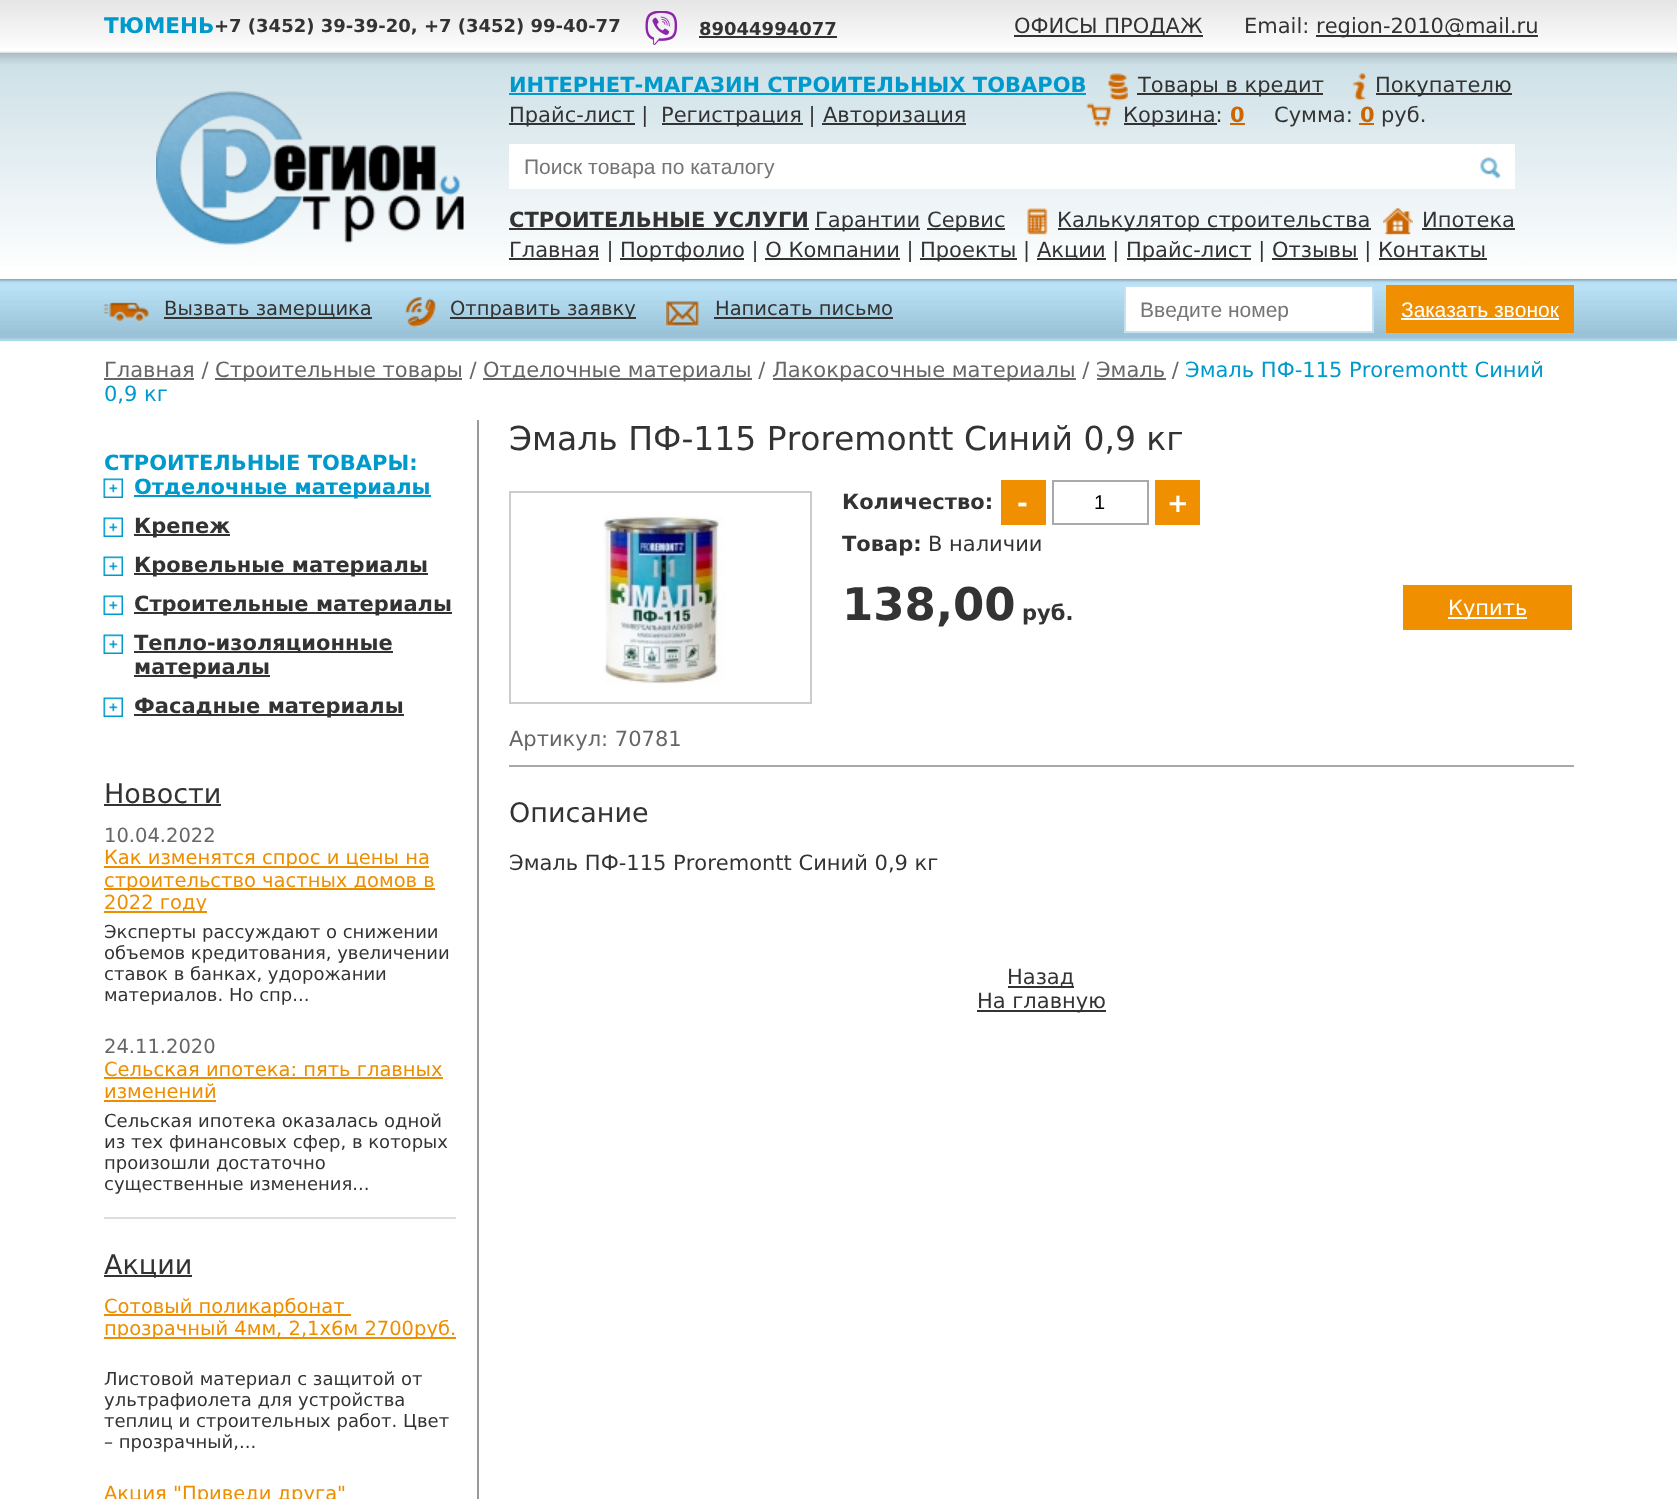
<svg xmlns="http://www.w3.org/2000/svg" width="1677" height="1499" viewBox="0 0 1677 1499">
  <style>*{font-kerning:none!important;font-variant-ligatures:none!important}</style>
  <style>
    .t1 { font: bold 21.5px DejaVu Sans; fill: #09c; }
    .t2 { font: bold 18px DejaVu Sans; fill: #333; }
    .t3 { font: 21px DejaVu Sans; fill: #333; }
    .t4 { font: bold 21px DejaVu Sans; fill: #09c; }
    .t5 { font: bold 21px DejaVu Sans; fill: #c60; }
    .t6 { font: 21px Liberation Sans; fill: #757575; }
    .t7 { font: bold 21px DejaVu Sans; fill: #333; }
    .t8 { font: 19.5px DejaVu Sans; fill: #333; }
    .t9 { font: 21px Liberation Sans; fill: #fff; }
    .t10 { font: 21px DejaVu Sans; fill: #666; }
    .t11 { font: 21px DejaVu Sans; fill: #09c; }
    .t12 { font: 27px DejaVu Sans; fill: #333; }
    .t13 { font: 19.5px DejaVu Sans; fill: #666; }
    .t14 { font: 19.5px DejaVu Sans; fill: #ed8e00; }
    .t15 { font: 18px DejaVu Sans; fill: #333; }
    .t16 { font: 33px DejaVu Sans; fill: #333; }
    .t17 { font: bold 26px DejaVu Sans; fill: #fff; }
    .t18 { font: 20px Liberation Sans; fill: #000; }
    .t19 { font: bold 45px DejaVu Sans; fill: #333; }
    .t20 { font: 21px DejaVu Sans; fill: #fff; }
  </style>
  <defs>
    <linearGradient id="g1" gradientUnits="userSpaceOnUse" x1="839" y1="0" x2="839" y2="51"><stop offset="0" stop-color="#e5e5e5"/><stop offset="1" stop-color="#fefefe"/></linearGradient>
    <linearGradient id="g2" gradientUnits="userSpaceOnUse" x1="839" y1="52" x2="839" y2="278"><stop offset="0" stop-color="#cbdfe6"/><stop offset="1" stop-color="#fff"/></linearGradient>
    <clipPath id="clip1"><rect x="1140" y="297" width="218" height="24"/></clipPath>
  </defs>
  <rect width="100%" height="100%" fill="#fff"/>
  <rect x="0" y="0" width="1677" height="48" fill="url(#g1)"/>
  <rect x="0" y="51" width="1677" height="2" fill="#f5f5f5"/>
  <text x="104" y="33" class="t1">ТЮМЕНЬ</text>
  <text x="214" y="32" class="t2">+7 (3452) 39-39-20, +7 (3452) 99-40-77</text>
  <image x="645" y="11" width="33" height="34" href="images/1.png"/>
  <text x="699" y="35" class="t2">89044994077</text>
  <rect x="699" y="36" width="138" height="2" fill="#333"/>
  <rect x="1014" y="35" width="189" height="2" fill="#333"/>
  <text x="1014" y="33" class="t3">ОФИСЫ ПРОДАЖ</text>
  <text x="1244" y="33" class="t3">Email:</text>
  <rect x="1316" y="35" width="222" height="2" fill="#333"/>
  <text x="1316" y="33" class="t3">region-2010@mail.ru</text>
  <rect x="0" y="53" width="1677" height="214" fill="url(#g2)"/>
  <rect x="0" y="278" width="1677" height="2" fill="#fafbfb"/>
  <image x="0" y="52" width="1677" height="12" href="images/2.png"/>
  <image x="156" y="91" width="308" height="154" href="images/3.png"/>
  <text x="509" y="92" class="t4">ИНТЕРНЕТ-МАГАЗИН СТРОИТЕЛЬНЫХ ТОВАРОВ</text>
  <rect x="509" y="93" width="577" height="2" fill="#09c"/>
  <image x="1108" y="73" width="20" height="28" href="images/4.png"/>
  <rect x="1137" y="93" width="186" height="2" fill="#333"/>
  <text x="1138" y="92" class="t3">Товары в кредит</text>
  <image x="1352" y="73" width="14" height="28" href="images/5.png"/>
  <rect x="1376" y="93" width="136" height="2" fill="#333"/>
  <text x="1375" y="92" class="t3">Покупателю</text>
  <rect x="509" y="123" width="126" height="2" fill="#333"/>
  <text x="509" y="122" class="t3">Прайс-лист |</text>
  <rect x="662" y="123" width="141" height="2" fill="#333"/>
  <text x="661" y="122" class="t3">Регистрация |</text>
  <rect x="822" y="123" width="144" height="2" fill="#333"/>
  <text x="823" y="122" class="t3">Авторизация</text>
  <image x="1086" y="103" width="26" height="24" href="images/6.png"/>
  <rect x="1124" y="123" width="93" height="2" fill="#333"/>
  <text x="1123" y="122" class="t3">Корзина:</text>
  <text x="1230" y="122" class="t5">0</text>
  <rect x="1230" y="123" width="15" height="2" fill="#c60"/>
  <text x="1274" y="122" class="t3">Сумма:</text>
  <text x="1360" y="122" class="t5">0</text>
  <rect x="1359" y="123" width="15" height="2" fill="#c60"/>
  <text x="1381" y="122" class="t3">руб.</text>
  <rect x="509" y="144" width="1006" height="45" fill="#fff"/>
  <text x="524" y="174" class="t6">Поиск товара по каталогу</text>
  <image x="1480" y="157" width="21" height="22" href="images/7.png"/>
  <text x="509" y="227" class="t7">СТРОИТЕЛЬНЫЕ УСЛУГИ</text>
  <rect x="509" y="228" width="300" height="2" fill="#333"/>
  <rect x="815" y="228" width="105" height="2" fill="#333"/>
  <text x="815" y="227" class="t3">Гарантии</text>
  <rect x="927" y="228" width="78" height="2" fill="#333"/>
  <text x="927" y="227" class="t3">Сервис</text>
  <image x="1027" y="208" width="21" height="27" href="images/8.png"/>
  <rect x="1058" y="228" width="313" height="2" fill="#333"/>
  <text x="1057" y="227" class="t3">Калькулятор строительства</text>
  <image x="1383" y="208" width="30" height="27" href="images/9.png"/>
  <text x="1422" y="227" class="t3">Ипотека</text>
  <rect x="1422" y="228" width="93" height="2" fill="#333"/>
  <rect x="509" y="258" width="90" height="2" fill="#333"/>
  <text x="509" y="257" class="t3">Главная |</text>
  <rect x="620" y="258" width="124" height="2" fill="#333"/>
  <text x="620" y="257" class="t3">Портфолио | О Компании |</text>
  <rect x="920" y="258" width="97" height="2" fill="#333"/>
  <text x="920" y="257" class="t3">Проекты |</text>
  <rect x="1037" y="258" width="69" height="2" fill="#333"/>
  <text x="1037" y="257" class="t3">Акции |</text>
  <rect x="1127" y="258" width="124" height="2" fill="#333"/>
  <text x="1126" y="257" class="t3">Прайс-лист | Отзывы | Контакты</text>
  <rect x="765" y="258" width="135" height="2" fill="#333"/>
  <rect x="1272" y="258" width="86" height="2" fill="#333"/>
  <rect x="1379" y="258" width="108" height="2" fill="#333"/>
  <image x="0" y="279" width="1677" height="60" href="images/10.png"/>
  <rect x="0" y="339" width="1677" height="2" fill="#a5dbed"/>
  <image x="103" y="302" width="46" height="21" href="images/11.png"/>
  <rect x="164" y="317" width="208" height="2" fill="#333"/>
  <text x="164" y="315" class="t8">Вызвать замерщика</text>
  <image x="405" y="297" width="31" height="30" href="images/12.png"/>
  <rect x="450" y="317" width="186" height="2" fill="#333"/>
  <text x="450" y="315" class="t8">Отправить заявку</text>
  <image x="666" y="301" width="33" height="26" href="images/13.png"/>
  <text x="715" y="315" class="t8">Написать письмо</text>
  <rect x="714" y="317" width="179" height="2" fill="#333"/>
  <rect x="1125" y="286" width="248" height="46" fill="#fff" stroke="#c7e2ef" stroke-width="2"/>
  <g clip-path="url(#clip1)">
    <text x="1140" y="317" class="t6">Введите номер</text>
  </g>
  <rect x="1386" y="285" width="188" height="48" fill="#f09000"/>
  <text x="1401" y="317" class="t9">Заказать звонок</text>
  <rect x="1401" y="318" width="158" height="2" fill="#fff"/>
  <rect x="104" y="378" width="90" height="2" fill="#666"/>
  <text x="104" y="377" class="t10">Главная /</text>
  <rect x="215" y="378" width="247" height="2" fill="#666"/>
  <text x="215" y="377" class="t10">Строительные товары /</text>
  <rect x="483" y="378" width="269" height="2" fill="#666"/>
  <text x="483" y="377" class="t10">Отделочные материалы /</text>
  <rect x="773" y="378" width="303" height="2" fill="#666"/>
  <text x="772" y="377" class="t10">Лакокрасочные материалы / Эмаль /</text>
  <text x="1185" y="377" class="t11">Эмаль ПФ-115 Proremontt Синий</text>
  <rect x="1097" y="378" width="69" height="2" fill="#666"/>
  <text x="104" y="401" class="t11">0,9 кг</text>
  <text x="104" y="470" class="t4">СТРОИТЕЛЬНЫЕ ТОВАРЫ:</text>
  <image x="103" y="478" width="20" height="20" href="images/14.png"/>
  <rect x="134" y="495" width="297" height="2" fill="#09c"/>
  <text x="134" y="494" class="t4">Отделочные материалы</text>
  <image x="103" y="517" width="20" height="20" href="images/14.png"/>
  <rect x="134" y="534" width="96" height="2" fill="#333"/>
  <text x="134" y="533" class="t7">Крепеж</text>
  <image x="103" y="556" width="20" height="20" href="images/14.png"/>
  <rect x="134" y="573" width="294" height="2" fill="#333"/>
  <text x="134" y="572" class="t7">Кровельные материалы</text>
  <image x="103" y="595" width="20" height="20" href="images/14.png"/>
  <rect x="134" y="612" width="318" height="2" fill="#333"/>
  <text x="134" y="611" class="t7">Строительные материалы</text>
  <image x="103" y="634" width="20" height="20" href="images/14.png"/>
  <rect x="134" y="651" width="259" height="2" fill="#333"/>
  <text x="134" y="650" class="t7">Тепло-изоляционные</text>
  <rect x="134" y="675" width="136" height="2" fill="#333"/>
  <text x="134" y="674" class="t7">материалы</text>
  <image x="103" y="697" width="20" height="20" href="images/14.png"/>
  <rect x="134" y="714" width="270" height="2" fill="#333"/>
  <text x="134" y="713" class="t7">Фасадные материалы</text>
  <rect x="477" y="420" width="2" height="1079" fill="#999"/>
  <rect x="104" y="1217" width="352" height="2" fill="#ddd"/>
  <text x="104" y="803" class="t12">Новости</text>
  <rect x="104" y="804" width="117" height="2" fill="#333"/>
  <text x="104" y="842" class="t13">10.04.2022</text>
  <rect x="104" y="866" width="325" height="2" fill="#ed8e00"/>
  <text x="104" y="864" class="t14">Как изменятся спрос и цены на</text>
  <rect x="104" y="888" width="331" height="2" fill="#ed8e00"/>
  <text x="104" y="887" class="t14">строительство частных домов в</text>
  <rect x="104" y="911" width="103" height="2" fill="#ed8e00"/>
  <text x="104" y="909" class="t14">2022 году</text>
  <text x="104" y="938" class="t15">Эксперты рассуждают о снижении</text>
  <text x="104" y="959" class="t15">объемов кредитования, увеличении</text>
  <text x="104" y="980" class="t15">ставок в банках, удорожании</text>
  <text x="104" y="1001" class="t15">материалов. Но спр...</text>
  <text x="104" y="1053" class="t13">24.11.2020</text>
  <text x="104" y="1076" class="t14">Сельская ипотека: пять главных</text>
  <rect x="104" y="1077" width="339" height="2" fill="#ed8e00"/>
  <text x="104" y="1098" class="t14">изменений</text>
  <rect x="104" y="1100" width="112" height="2" fill="#ed8e00"/>
  <text x="104" y="1127" class="t15">Сельская ипотека оказалась одной</text>
  <text x="104" y="1148" class="t15">из тех финансовых сфер, в которых</text>
  <text x="104" y="1169" class="t15">произошли достаточно</text>
  <text x="104" y="1190" class="t15">существенные изменения...</text>
  <rect x="104" y="1275" width="88" height="2" fill="#333"/>
  <text x="104" y="1274" class="t12">Акции</text>
  <rect x="104" y="1314" width="247" height="2" fill="#ed8e00"/>
  <text x="104" y="1313" class="t14"> Сотовый поликарбонат</text>
  <rect x="104" y="1337" width="352" height="2" fill="#ed8e00"/>
  <text x="104" y="1335" class="t14">прозрачный 4мм, 2,1х6м 2700руб.</text>
  <text x="104" y="1385" class="t15">Листовой материал с защитой от</text>
  <text x="104" y="1406" class="t15">ультрафиолета для устройства</text>
  <text x="104" y="1427" class="t15">теплиц и строительных работ. Цвет</text>
  <text x="104" y="1448" class="t15">– прозрачный,...</text>
  <text x="104" y="1500" class="t14">Акция "Приведи друга"</text>
  <text x="509" y="450" class="t16">Эмаль ПФ-115 Proremontt Синий 0,9 кг</text>
  <text x="842" y="509" class="t7">Количество:</text>
  <rect x="1001" y="480" width="45" height="45" fill="#f09000"/>
  <text x="1017" y="512" class="t17">-</text>
  <rect x="1053" y="481" width="95" height="43" fill="none" stroke="#a8a9ab" stroke-width="2"/>
  <text x="1094" y="509" class="t18">1</text>
  <rect x="1155" y="480" width="45" height="45" fill="#f09000"/>
  <text x="1167" y="512" class="t17">+</text>
  <text x="842" y="551" class="t7">Товар:</text>
  <text x="928" y="551" class="t3">В наличии</text>
  <text x="842" y="620" class="t19">138,00</text>
  <text x="1022" y="620" class="t7">руб.</text>
  <rect x="1403" y="585" width="169" height="45" fill="#f09000"/>
  <rect x="1448" y="617" width="79" height="2" fill="#fff"/>
  <text x="1448" y="615" class="t20">Купить</text>
  <image x="603" y="515" width="122" height="170" href="images/15.png"/>
  <rect x="510" y="492" width="301" height="211" fill="none" stroke="#ccc" stroke-width="2"/>
  <text x="509" y="746" class="t10">Артикул: 70781</text>
  <rect x="509" y="765" width="1065" height="2" fill="#a8a9ab"/>
  <text x="509" y="822" class="t12">Описание</text>
  <text x="509" y="870" class="t3">Эмаль ПФ-115 Proremontt Синий 0,9 кг</text>
  <rect x="1008" y="986" width="66" height="2" fill="#333"/>
  <text x="1007" y="984" class="t3">Назад</text>
  <rect x="977" y="1010" width="129" height="2" fill="#333"/>
  <text x="977" y="1008" class="t3">На главную</text>
</svg>
